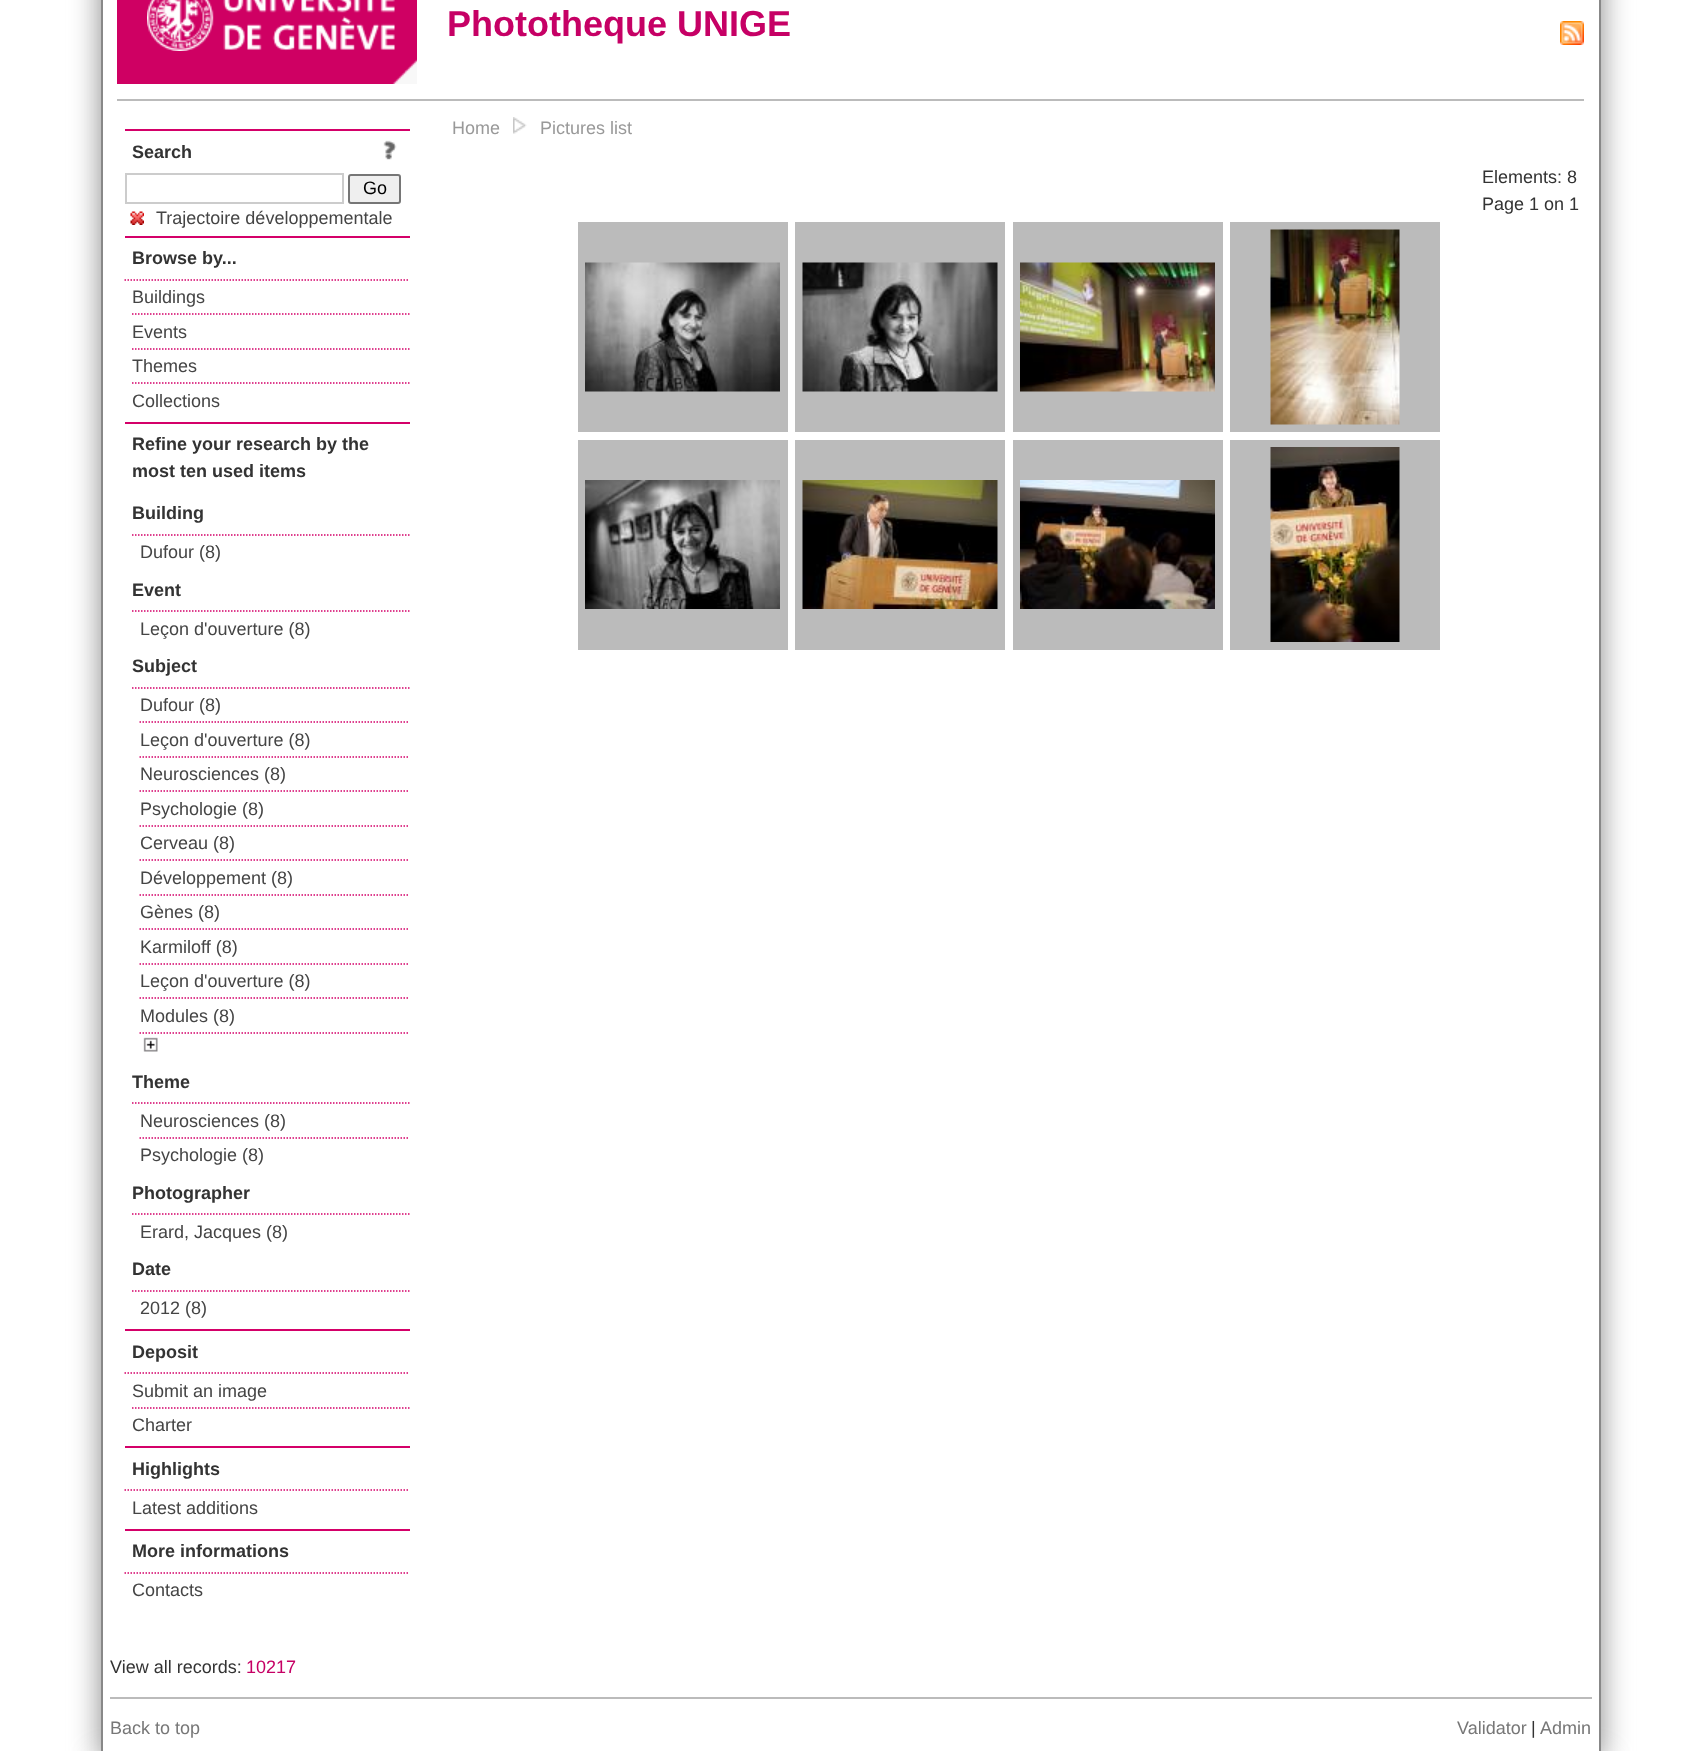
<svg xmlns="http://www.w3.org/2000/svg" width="1701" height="1751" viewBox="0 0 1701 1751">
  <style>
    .t1 { font: bold 36px Liberation Sans; fill: #c60065; }
    .t2 { font: bold 18px Liberation Sans; fill: #333; }
    .t3 { font: 18px Liberation Sans; fill: #000; }
    .t4 { font: 18px Liberation Sans; fill: #454545; }
    .t5 { font: 18px Liberation Sans; fill: #999; }
    .t6 { font: 18px Liberation Sans; fill: #333; }
    .t7 { font: 18px Liberation Sans; fill: #c60065; }
    .t8 { font: 18px Liberation Sans; fill: #777; }
  </style>
  <rect width="100%" height="100%" fill="#fff"/>
  <rect x="101" y="-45" width="1500" height="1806" fill="#888" filter="blur(15px)"/>
  <rect x="103" y="0" width="1496" height="1751" fill="#fff"/>
  <rect x="1599" y="0" width="2" height="1751" fill="#888"/>
  <rect x="101" y="0" width="2" height="1751" fill="#888"/>
  <rect x="117" y="0" width="300" height="84" fill="#cf0063"/>
  <image x="392" y="59" width="25" height="25" href="images/1.png"/>
  <image x="147" y="0" width="248" height="51" href="images/2.png"/>
  <text x="447" y="36" class="t1">Phototheque UNIGE</text>
  <image x="1560" y="21" width="24" height="24" href="images/3.png"/>
  <rect x="117" y="99" width="1467" height="2" fill="#bbb"/>
  <rect x="125" y="129" width="285" height="2" fill="#d40069"/>
  <text x="132" y="158" class="t2">Search</text>
  <image x="383" y="140" width="14" height="20" href="images/4.png"/>
  <rect x="126" y="174" width="217" height="29" fill="none" stroke="#ccc" stroke-width="2"/>
  <rect x="349" y="175" width="51" height="28" rx="2" fill="#efefef" stroke="#767676" stroke-width="2"/>
  <text x="363" y="194" class="t3">Go</text>
  <image x="130" y="211" width="14" height="14" href="images/5.png"/>
  <text x="156" y="224" class="t4">Trajectoire développementale</text>
  <rect x="125" y="236" width="285" height="2" fill="#d40069"/>
  <path d="M124.5 280H409.5" fill="none" stroke="#d40069" stroke-width="1.5" stroke-dasharray="1.5 1.5"/>
  <text x="132" y="264" class="t2">Browse by...</text>
  <path d="M132 314H409.5" fill="none" stroke="#d40069" stroke-width="1.5" stroke-dasharray="1.5 1.5"/>
  <text x="132" y="303" class="t4">Buildings</text>
  <path d="M132 349H409.5" fill="none" stroke="#d40069" stroke-width="1.5" stroke-dasharray="1.5 1.5"/>
  <text x="132" y="338" class="t4">Events</text>
  <path d="M132 383H409.5" fill="none" stroke="#d40069" stroke-width="1.5" stroke-dasharray="1.5 1.5"/>
  <text x="132" y="372" class="t4">Themes</text>
  <text x="132" y="407" class="t4">Collections</text>
  <rect x="125" y="422" width="285" height="2" fill="#d40069"/>
  <text x="132" y="450" class="t2">Refine your research by the</text>
  <text x="132" y="477" class="t2">most ten used items</text>
  <path d="M132 535H409.5" fill="none" stroke="#d40069" stroke-width="1.5" stroke-dasharray="1.5 1.5"/>
  <text x="132" y="519" class="t2">Building</text>
  <text x="140" y="558" class="t4">Dufour (8)</text>
  <path d="M132 611H409.5" fill="none" stroke="#d40069" stroke-width="1.5" stroke-dasharray="1.5 1.5"/>
  <text x="132" y="596" class="t2">Event</text>
  <text x="140" y="635" class="t4">Leçon d'ouverture (8)</text>
  <path d="M132 688H409.5" fill="none" stroke="#d40069" stroke-width="1.5" stroke-dasharray="1.5 1.5"/>
  <text x="132" y="672" class="t2">Subject</text>
  <path d="M139.5 722H409.5" fill="none" stroke="#d40069" stroke-width="1.5" stroke-dasharray="1.5 1.5"/>
  <text x="140" y="711" class="t4">Dufour (8)</text>
  <path d="M139.5 757H409.5" fill="none" stroke="#d40069" stroke-width="1.5" stroke-dasharray="1.5 1.5"/>
  <text x="140" y="746" class="t4">Leçon d'ouverture (8)</text>
  <path d="M139.5 791H409.5" fill="none" stroke="#d40069" stroke-width="1.5" stroke-dasharray="1.5 1.5"/>
  <text x="140" y="780" class="t4">Neurosciences (8)</text>
  <path d="M139.5 826H409.5" fill="none" stroke="#d40069" stroke-width="1.5" stroke-dasharray="1.5 1.5"/>
  <text x="140" y="815" class="t4">Psychologie (8)</text>
  <path d="M139.5 860H409.5" fill="none" stroke="#d40069" stroke-width="1.5" stroke-dasharray="1.5 1.5"/>
  <text x="140" y="849" class="t4">Cerveau (8)</text>
  <path d="M139.5 895H409.5" fill="none" stroke="#d40069" stroke-width="1.5" stroke-dasharray="1.5 1.5"/>
  <text x="140" y="884" class="t4">Développement (8)</text>
  <path d="M139.5 929H409.5" fill="none" stroke="#d40069" stroke-width="1.5" stroke-dasharray="1.5 1.5"/>
  <text x="140" y="918" class="t4">Gènes (8)</text>
  <path d="M139.5 964H409.5" fill="none" stroke="#d40069" stroke-width="1.5" stroke-dasharray="1.5 1.5"/>
  <text x="140" y="953" class="t4">Karmiloff (8)</text>
  <path d="M139.5 998H409.5" fill="none" stroke="#d40069" stroke-width="1.5" stroke-dasharray="1.5 1.5"/>
  <text x="140" y="987" class="t4">Leçon d'ouverture (8)</text>
  <path d="M139.5 1033H409.5" fill="none" stroke="#d40069" stroke-width="1.5" stroke-dasharray="1.5 1.5"/>
  <text x="140" y="1022" class="t4">Modules (8)</text>
  <image x="143" y="1037" width="15" height="15" href="images/6.png"/>
  <path d="M132 1103H409.5" fill="none" stroke="#d40069" stroke-width="1.5" stroke-dasharray="1.5 1.5"/>
  <text x="132" y="1088" class="t2">Theme</text>
  <path d="M139.5 1138H409.5" fill="none" stroke="#d40069" stroke-width="1.5" stroke-dasharray="1.5 1.5"/>
  <text x="140" y="1127" class="t4">Neurosciences (8)</text>
  <text x="140" y="1161" class="t4">Psychologie (8)</text>
  <path d="M132 1214H409.5" fill="none" stroke="#d40069" stroke-width="1.5" stroke-dasharray="1.5 1.5"/>
  <text x="132" y="1199" class="t2">Photographer</text>
  <text x="140" y="1238" class="t4">Erard, Jacques (8)</text>
  <path d="M132 1291H409.5" fill="none" stroke="#d40069" stroke-width="1.5" stroke-dasharray="1.5 1.5"/>
  <text x="132" y="1275" class="t2">Date</text>
  <text x="140" y="1314" class="t4">2012 (8)</text>
  <rect x="125" y="1329" width="285" height="2" fill="#d40069"/>
  <path d="M124.5 1373H409.5" fill="none" stroke="#d40069" stroke-width="1.5" stroke-dasharray="1.5 1.5"/>
  <text x="132" y="1358" class="t2">Deposit</text>
  <path d="M132 1408H409.5" fill="none" stroke="#d40069" stroke-width="1.5" stroke-dasharray="1.5 1.5"/>
  <text x="132" y="1397" class="t4">Submit an image</text>
  <text x="132" y="1431" class="t4">Charter</text>
  <rect x="125" y="1446" width="285" height="2" fill="#d40069"/>
  <path d="M124.5 1490H409.5" fill="none" stroke="#d40069" stroke-width="1.5" stroke-dasharray="1.5 1.5"/>
  <text x="132" y="1475" class="t2">Highlights</text>
  <text x="132" y="1514" class="t4">Latest additions</text>
  <rect x="125" y="1529" width="285" height="2" fill="#d40069"/>
  <path d="M124.5 1573H409.5" fill="none" stroke="#d40069" stroke-width="1.5" stroke-dasharray="1.5 1.5"/>
  <text x="132" y="1557" class="t2">More informations</text>
  <text x="132" y="1596" class="t4">Contacts</text>
  <text x="452" y="134" class="t5">Home</text>
  <image x="513" y="117" width="14" height="17" href="images/7.png"/>
  <text x="540" y="134" class="t5">Pictures list</text>
  <text x="1482" y="183" class="t6">Elements: 8</text>
  <text x="1482" y="210" class="t6">Page 1 on 1</text>
  <rect x="578" y="222" width="210" height="210" fill="#bbb"/>
  <image x="585" y="262" width="195" height="130" href="images/8.png"/>
  <rect x="795" y="222" width="210" height="210" fill="#bbb"/>
  <image x="802" y="262" width="196" height="130" href="images/9.png"/>
  <rect x="1013" y="222" width="210" height="210" fill="#bbb"/>
  <image x="1020" y="262" width="195" height="130" href="images/10.png"/>
  <rect x="1230" y="222" width="210" height="210" fill="#bbb"/>
  <image x="1270" y="229" width="130" height="196" href="images/11.png"/>
  <rect x="578" y="440" width="210" height="210" fill="#bbb"/>
  <image x="585" y="480" width="195" height="129" href="images/12.png"/>
  <rect x="795" y="440" width="210" height="210" fill="#bbb"/>
  <image x="802" y="480" width="196" height="129" href="images/13.png"/>
  <rect x="1013" y="440" width="210" height="210" fill="#bbb"/>
  <image x="1020" y="480" width="195" height="129" href="images/14.png"/>
  <rect x="1230" y="440" width="210" height="210" fill="#bbb"/>
  <image x="1270" y="447" width="130" height="195" href="images/15.png"/>
  <rect x="110" y="1697" width="1482" height="2" fill="#bbb"/>
  <text x="110" y="1673" class="t6">View all records:</text>
  <text x="246" y="1673" class="t7">10217</text>
  <text x="110" y="1734" class="t8">Back to top</text>
  <text x="1457" y="1734" class="t8">Validator</text>
  <text x="1531" y="1734" class="t6">|</text>
  <text x="1540" y="1734" class="t8">Admin</text>
</svg>
